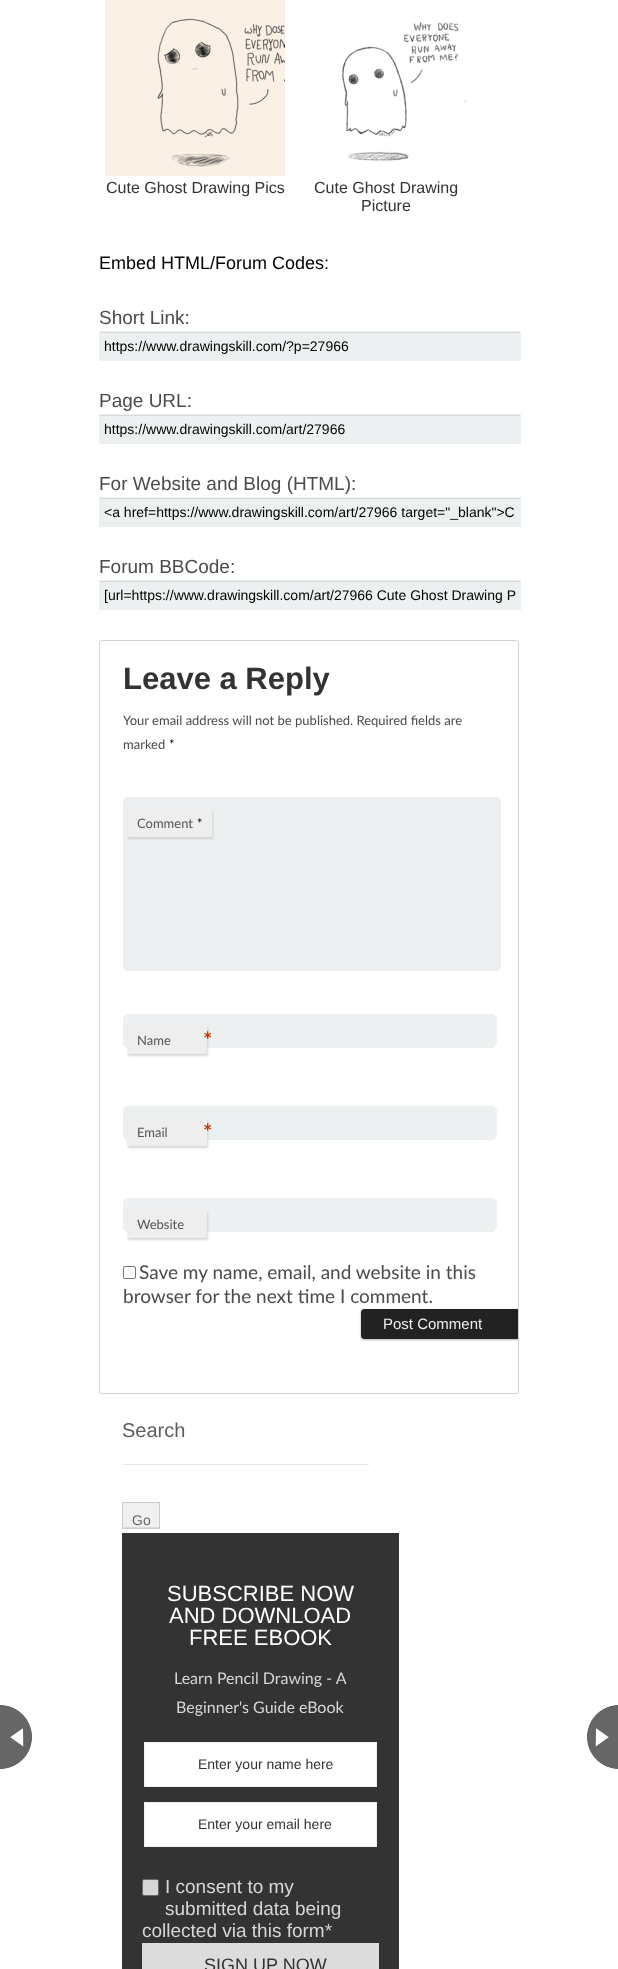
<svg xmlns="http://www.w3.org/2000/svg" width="618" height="1969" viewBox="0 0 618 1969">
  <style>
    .t1 { font: 16px Liberation Sans; fill: #333; }
    .t2 { font: 18px Liberation Sans; fill: #000; }
    .t3 { font: 19px Liberation Sans; fill: #4b4b4c; }
    .t4 { font: 14px Liberation Sans; fill: #000; }
    .t5 { font: bold 31px Liberation Sans; fill: #333; }
    .t6 { font: 13px Lato; fill: #4b4b4c; }
    .t7 { font: 13px Lato; fill: #0a0002; }
    .t8 { font: 13px Lato; fill: #555; }
    .t9 { font: bold 22px Lato; fill: #bd3500; }
    .t10 { font: 19px Lato; fill: #4b4b4c; }
    .t11 { font: 15px Liberation Sans; fill: #eee; }
    .t12 { font: 20px Liberation Sans; fill: #5d5d5e; }
    .t13 { font: 14px Liberation Sans; fill: #666; }
    .t14 { font: 22px Liberation Sans; fill: #fff; }
    .t15 { font: 16px Lato; fill: #d6d6d6; }
    .t16 { font: 14px Liberation Sans; fill: #333; }
    .t17 { font: 19px Liberation Sans; fill: #d6d6d6; }
    .t18 { font: 18px Liberation Sans; fill: #333; }
  </style>
  <defs>
    <clipPath id="clip1"><rect x="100" y="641" width="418" height="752" rx="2"/></clipPath>
  </defs>
  <rect width="100%" height="100%" fill="#fff"/>
  <image x="105" y="0" width="180" height="176" href="images/1.png"/>
  <text x="106" y="193" class="t1">Cute Ghost Drawing Pics</text>
  <image x="338" y="22" width="128" height="139" href="images/2.png"/>
  <text x="314" y="193" class="t1">Cute Ghost Drawing</text>
  <text x="361" y="211" class="t1">Picture</text>
  <text x="99" y="269" class="t2">Embed HTML/Forum Codes:</text>
  <text x="99" y="324" class="t3">Short Link:</text>
  <rect x="99" y="331" width="422" height="30" fill="#ecf0f1"/>
  <rect x="100" y="332" width="420" height="1" fill="#d4d8d9"/>
  <text x="104" y="351" class="t4">https://www.drawingskill.com/?p=27966</text>
  <text x="99" y="407" class="t3">Page URL:</text>
  <rect x="99" y="414" width="422" height="30" fill="#ecf0f1"/>
  <rect x="100" y="415" width="420" height="1" fill="#d4d8d9"/>
  <text x="104" y="434" class="t4">https://www.drawingskill.com/art/27966</text>
  <text x="99" y="490" class="t3">For Website and Blog (HTML):</text>
  <rect x="99" y="497" width="422" height="30" fill="#ecf0f1"/>
  <rect x="100" y="498" width="420" height="1" fill="#d4d8d9"/>
  <text x="104" y="517" class="t4">&lt;a href=https://www.drawingskill.com/art/27966 target="_blank"&gt;C</text>
  <text x="99" y="573" class="t3">Forum BBCode:</text>
  <rect x="99" y="580" width="422" height="30" fill="#ecf0f1"/>
  <rect x="100" y="581" width="420" height="1" fill="#d4d8d9"/>
  <text x="104" y="600" class="t4">[url=https://www.drawingskill.com/art/27966 Cute Ghost Drawing P</text>
  <rect x="99.5" y="640.5" width="419" height="753" rx="2.5" fill="none" stroke="#d3d3d3"/>
  <text x="123" y="689" class="t5">Leave a Reply</text>
  <text x="123" y="725" class="t6">Your email address will not be published. Required fields are</text>
  <text x="123" y="749" class="t6">marked</text>
  <text x="169" y="749" class="t7">*</text>
  <rect x="123.5" y="797.5" width="377" height="173" rx="4.5" fill="#ecf0f1" stroke="#ecf0f1"/>
  <rect x="128" y="811" width="85" height="28" fill="#cccccccc" filter="blur(1px)"/>
  <rect x="127" y="809" width="85" height="28" fill="#eee"/>
  <text x="137" y="828" class="t8">Comment</text>
  <text x="197" y="828" class="t7">*</text>
  <rect x="123.5" y="1014.5" width="373" height="33" rx="4.5" fill="#ecf0f1" stroke="#ecf0f1"/>
  <rect x="128" y="1028" width="80" height="28" fill="#cccccccc" filter="blur(1px)"/>
  <rect x="127" y="1026" width="80" height="28" fill="#eee"/>
  <text x="137" y="1045" class="t8">Name</text>
  <text x="203" y="1048" class="t9">*</text>
  <rect x="123.5" y="1106.5" width="373" height="33" rx="4.5" fill="#ecf0f1" stroke="#ecf0f1"/>
  <rect x="128" y="1120" width="80" height="28" fill="#cccccccc" filter="blur(1px)"/>
  <rect x="127" y="1118" width="80" height="28" fill="#eee"/>
  <text x="137" y="1137" class="t8">Email</text>
  <text x="203" y="1140" class="t9">*</text>
  <rect x="123.5" y="1198.5" width="373" height="33" rx="4.5" fill="#ecf0f1" stroke="#ecf0f1"/>
  <rect x="128" y="1212" width="80" height="28" fill="#cccccccc" filter="blur(1px)"/>
  <rect x="127" y="1210" width="80" height="28" fill="#eee"/>
  <text x="137" y="1229" class="t8">Website</text>
  <rect x="123.5" y="1266.5" width="12" height="12" rx="1.5" fill="none" stroke="#767676"/>
  <text x="139" y="1279" class="t10">Save my name, email, and website in this</text>
  <text x="123" y="1303" class="t10">browser for the next time I comment.</text>
  <g clip-path="url(#clip1)">
    <rect x="361" y="1310" width="164" height="30" rx="3" fill="#0000004d" filter="blur(1px)"/>
  </g>
  <path d="M364 1309H518V1339H364C362.5 1339 361 1337.5 361 1336V1312C361 1310.5 362.5 1309 364 1309Z" fill="#222"/>
  <text x="383" y="1329" class="t11">Post Comment</text>
  <text x="122" y="1437" class="t12">Search</text>
  <rect x="123" y="1464" width="246" height="1" fill="#e6e6e6"/>
  <rect x="123" y="1503" width="36" height="24" fill="#f0f0f0"/>
  <rect x="123" y="1527" width="36" height="1" fill="#dadada"/>
  <rect x="122.5" y="1502.5" width="37" height="26" fill="none" stroke="#ccc"/>
  <text x="132" y="1525" class="t13">Go</text>
  <rect x="122" y="1533" width="277" height="436" fill="#333"/>
  <text x="167" y="1601" class="t14">SUBSCRIBE NOW</text>
  <text x="169" y="1623" class="t14">AND DOWNLOAD</text>
  <text x="189" y="1645" class="t14">FREE EBOOK</text>
  <text x="174" y="1684" class="t15">Learn Pencil Drawing - A</text>
  <text x="176" y="1713" class="t15">Beginner's Guide eBook</text>
  <rect x="144.5" y="1742.5" width="232" height="44" fill="#fff" stroke="#ecf0f1"/>
  <text x="198" y="1769" class="t16">Enter your name here</text>
  <rect x="144.5" y="1802.5" width="232" height="44" fill="#fff" stroke="#ecf0f1"/>
  <text x="198" y="1829" class="t16">Enter your email here</text>
  <rect x="142.5" y="1879.5" width="16" height="16" rx="1.5" fill="#d6d6d6" stroke="#696969"/>
  <text x="165" y="1893" class="t17">I consent to my</text>
  <text x="165" y="1915" class="t17">submitted data being</text>
  <text x="142" y="1937" class="t17">collected via this form*</text>
  <rect x="142" y="1943" width="237" height="26" fill="#dcdcdc"/>
  <text x="204" y="1971" class="t18">SIGN UP NOW</text>
  <image x="0" y="1705" width="32" height="64" href="images/3.png"/>
  <image x="587" y="1705" width="31" height="64" href="images/4.png"/>
</svg>
